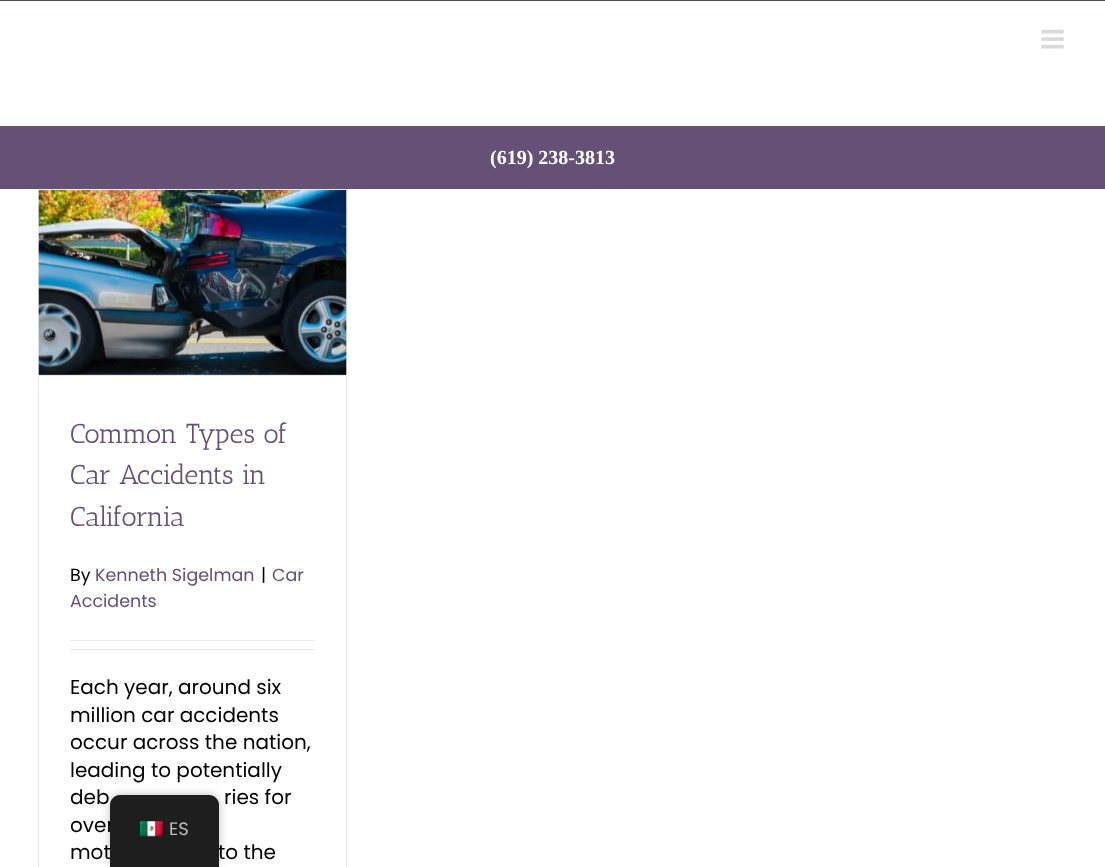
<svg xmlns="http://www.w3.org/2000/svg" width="1105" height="867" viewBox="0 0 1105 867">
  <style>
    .t1 { font: bold 20px Liberation Serif; fill: #fff; }
    .t2 { font: 27.5px Antic Slab; fill: #645175; }
    .t3 { font: 17.5px Poppins; fill: #000; }
    .t4 { font: 17.5px Poppins; fill: #645175; }
    .t5 { font: 20px Poppins; fill: #000; }
    .t6 { font: 18px Poppins; fill: #bdbdbd; }
  </style>
  <rect width="100%" height="100%" fill="#fff"/>
  <rect x="0" y="0" width="1105" height="1" fill="#584566"/>
  <image x="1041" y="29" width="23" height="20" href="images/1.png"/>
  <rect x="0" y="126" width="1105" height="63" fill="#645175"/>
  <text x="490" y="164" class="t1">(619) 238-3813</text>
  <rect x="38" y="189" width="310" height="1" fill="#ebeaea"/>
  <rect x="346" y="189" width="1" height="678" fill="#ebeaea"/>
  <rect x="38" y="189" width="1" height="678" fill="#ebeaea"/>
  <rect x="39" y="375" width="307" height="1" fill="#ebeaea"/>
  <image x="38" y="190" width="309" height="185" href="images/2.png"/>
  <text x="70" y="443" class="t2">Common Types of</text>
  <text x="70" y="484" class="t2">Car Accidents in</text>
  <text x="70" y="526" class="t2">California</text>
  <text x="70" y="581" class="t3">By</text>
  <text x="95" y="581" class="t4">Kenneth Sigelman</text>
  <text x="261" y="581" class="t3">|</text>
  <text x="272" y="581" class="t4">Car</text>
  <text x="70" y="607" class="t4">Accidents</text>
  <rect x="70" y="640" width="245" height="1" fill="#ebeaea"/>
  <rect x="70" y="649" width="245" height="1" fill="#ebeaea"/>
  <text x="70" y="694" class="t5">Each year, around six</text>
  <text x="70" y="722" class="t5">million car accidents</text>
  <text x="70" y="749" class="t5">occur across the nation,</text>
  <text x="70" y="777" class="t5">leading to potentially</text>
  <text x="70" y="804" class="t5">deb</text>
  <text x="224" y="804" class="t5">ries for</text>
  <text x="70" y="832" class="t5">over</text>
  <text x="70" y="859" class="t5">mot</text>
  <text x="218" y="859" class="t5">to the</text>
  <rect x="110" y="795" width="109" height="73" rx="10" fill="#00000040" filter="blur(5px)"/>
  <path d="M120 795H209C214.5 795 219 799.5 219 805V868H110V805C110 799.5 114.5 795 120 795Z" fill="#1e1e1e"/>
  <image x="140" y="821" width="23" height="16" href="images/3.png"/>
  <text x="169" y="835" class="t6">ES</text>
</svg>
